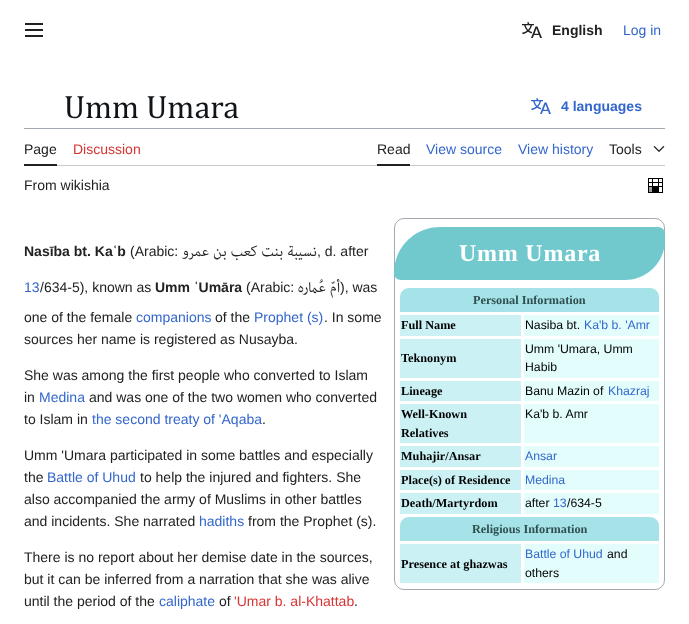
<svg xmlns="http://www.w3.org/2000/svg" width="689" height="624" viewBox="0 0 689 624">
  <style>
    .t1 { font: bold 14px Liberation Sans; fill: #202122; }
    .t2 { font: 14px Liberation Sans; fill: #36c; }
    .t3 { font: 32.5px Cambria; fill: #101418; }
    .t4 { font: bold 14px Liberation Sans; fill: #36c; }
    .t5 { font: 14px Liberation Sans; fill: #202122; }
    .t6 { font: 14px Liberation Sans; fill: #d73333; }
    .t7 { font: 20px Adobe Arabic; direction: rtl; fill: #202122; }
    .t8 { font: bold 24px Liberation Serif; letter-spacing: 0.75px; fill: #fff; }
    .t9 { font: bold 12.25px Liberation Serif; fill: #2f4f4f; }
    .t10 { font: bold 12.25px Liberation Serif; fill: #000; }
    .t11 { font: 12.25px Liberation Sans; fill: #000; }
    .t12 { font: 12.25px Liberation Sans; fill: #36c; }
  </style>
  <rect width="100%" height="100%" fill="#fff"/>
  <image x="25" y="23" width="18" height="14" href="images/1.png"/>
  <image x="522" y="22" width="20" height="16" href="images/2.png"/>
  <text x="552" y="35" class="t1">English</text>
  <text x="623" y="35" class="t2">Log in</text>
  <text x="64" y="118" class="t3">Umm Umara</text>
  <image x="531" y="98" width="20" height="16" href="images/3.png"/>
  <text x="561" y="111" class="t4">4 languages</text>
  <rect x="24" y="128" width="641" height="1" fill="#a2a9b1"/>
  <rect x="57" y="165" width="608" height="1" fill="#c8ccd1"/>
  <rect x="24" y="164" width="33" height="2" fill="#202122"/>
  <text x="24" y="154" class="t5">Page</text>
  <text x="73" y="154" class="t6">Discussion</text>
  <rect x="377" y="164" width="33" height="2" fill="#202122"/>
  <text x="377" y="154" class="t5">Read</text>
  <text x="426" y="154" class="t2">View source</text>
  <text x="518" y="154" class="t2">View history</text>
  <text x="609" y="154" class="t5">Tools</text>
  <image x="653" y="146" width="12" height="6" href="images/4.png"/>
  <text x="24" y="190" class="t5">From wikishia</text>
  <image x="648" y="178" width="15" height="15" href="images/5.png"/>
  <text x="24" y="256" class="t1">Nasība bt. Kaʿb</text>
  <text x="130" y="256" class="t5">(Arabic:</text>
  <text x="317" y="256" class="t7">نسيبة بنت كعب بن عمرو</text>
  <text x="317" y="256" class="t5">, d. after</text>
  <text x="24" y="292" class="t2">13</text>
  <text x="40" y="292" class="t5">/634-5), known as</text>
  <text x="155" y="292" class="t1">Umm ʿUmāra</text>
  <text x="246" y="292" class="t5">(Arabic:</text>
  <text x="340" y="292" class="t7">أمّ عُماره</text>
  <text x="340" y="292" class="t5">), was</text>
  <text x="24" y="322" class="t5">one of the female</text>
  <text x="136" y="322" class="t2">companions</text>
  <text x="215" y="322" class="t5">of the</text>
  <text x="254" y="322" class="t2">Prophet (s)</text>
  <text x="324" y="322" class="t5">. In some</text>
  <text x="24" y="344" class="t5">sources her name is registered as Nusayba.</text>
  <rect x="394.5" y="218.5" width="270" height="371" rx="9.5" fill="none" stroke="#a2a9b1"/>
  <path d="M440 227H658C662 227 665 230 665 234V240C665 262 647 280 625 280H401C397 280 394 277 394 273C394 247.5 414.5 227 440 227Z" fill="#71c9ce"/>
  <text x="459" y="261" class="t8">Umm Umara</text>
  <path d="M409 288H650C655 288 659 292 659 297V312H400V297C400 292 404 288 409 288Z" fill="#a6e3e9"/>
  <text x="473" y="304" class="t9">Personal Information</text>
  <rect x="400" y="315" width="121" height="21" fill="#cbf1f5"/>
  <text x="401" y="329" class="t10">Full Name</text>
  <rect x="524" y="315" width="135" height="21" fill="#e3fdfd"/>
  <text x="525" y="329" class="t11">Nasiba bt.</text>
  <text x="584" y="329" class="t12">Ka'b b. 'Amr</text>
  <rect x="400" y="339" width="121" height="39" fill="#cbf1f5"/>
  <text x="401" y="362" class="t10">Teknonym</text>
  <rect x="524" y="339" width="135" height="39" fill="#e3fdfd"/>
  <text x="525" y="353" class="t11">Umm 'Umara, Umm</text>
  <text x="525" y="371" class="t11">Habib</text>
  <rect x="400" y="381" width="121" height="20" fill="#cbf1f5"/>
  <text x="401" y="395" class="t10">Lineage</text>
  <rect x="524" y="381" width="135" height="20" fill="#e3fdfd"/>
  <text x="525" y="395" class="t11">Banu Mazin of</text>
  <text x="608" y="395" class="t12">Khazraj</text>
  <rect x="400" y="404" width="121" height="39" fill="#cbf1f5"/>
  <text x="401" y="418" class="t10">Well-Known</text>
  <text x="401" y="437" class="t10">Relatives</text>
  <rect x="524" y="404" width="135" height="39" fill="#e3fdfd"/>
  <text x="525" y="418" class="t11">Ka'b b. Amr</text>
  <rect x="400" y="446" width="121" height="21" fill="#cbf1f5"/>
  <text x="401" y="460" class="t10">Muhajir/Ansar</text>
  <rect x="524" y="446" width="135" height="21" fill="#e3fdfd"/>
  <text x="525" y="460" class="t12">Ansar</text>
  <rect x="400" y="470" width="121" height="20" fill="#cbf1f5"/>
  <text x="401" y="484" class="t10">Place(s) of Residence</text>
  <rect x="524" y="470" width="135" height="20" fill="#e3fdfd"/>
  <text x="525" y="484" class="t12">Medina</text>
  <rect x="400" y="493" width="121" height="21" fill="#cbf1f5"/>
  <text x="401" y="507" class="t10">Death/Martyrdom</text>
  <rect x="524" y="493" width="135" height="21" fill="#e3fdfd"/>
  <text x="525" y="507" class="t11">after</text>
  <text x="553" y="507" class="t12">13</text>
  <text x="567" y="507" class="t11">/634-5</text>
  <path d="M409 517H650C655 517 659 521 659 526V541H400V526C400 521 404 517 409 517Z" fill="#a6e3e9"/>
  <text x="472" y="533" class="t9">Religious Information</text>
  <rect x="400" y="544" width="121" height="39" fill="#cbf1f5"/>
  <text x="401" y="568" class="t10">Presence at ghazwas</text>
  <rect x="524" y="544" width="135" height="39" fill="#e3fdfd"/>
  <text x="525" y="558" class="t12">Battle of Uhud</text>
  <text x="607" y="558" class="t11">and</text>
  <text x="525" y="577" class="t11">others</text>
  <text x="24" y="380" class="t5">She was among the first people who converted to Islam</text>
  <text x="24" y="402" class="t5">in</text>
  <text x="39" y="402" class="t2">Medina</text>
  <text x="89" y="402" class="t5">and was one of the two women who converted</text>
  <text x="24" y="424" class="t5">to Islam in</text>
  <text x="92" y="424" class="t2">the second treaty of 'Aqaba</text>
  <text x="262" y="424" class="t5">.</text>
  <text x="24" y="460" class="t5">Umm 'Umara participated in some battles and especially</text>
  <text x="24" y="482" class="t5">the</text>
  <text x="47" y="482" class="t2">Battle of Uhud</text>
  <text x="140" y="482" class="t5">to help the injured and fighters. She</text>
  <text x="24" y="504" class="t5">also accompanied the army of Muslims in other battles</text>
  <text x="24" y="526" class="t5">and incidents. She narrated</text>
  <text x="199" y="526" class="t2">hadiths</text>
  <text x="248" y="526" class="t5">from the Prophet (s).</text>
  <text x="24" y="562" class="t5">There is no report about her demise date in the sources,</text>
  <text x="24" y="584" class="t5">but it can be inferred from a narration that she was alive</text>
  <text x="24" y="606" class="t5">until the period of the</text>
  <text x="159" y="606" class="t2">caliphate</text>
  <text x="219" y="606" class="t5">of</text>
  <text x="234" y="606" class="t6">'Umar b. al-Khattab</text>
  <text x="354" y="606" class="t5">.</text>
</svg>
